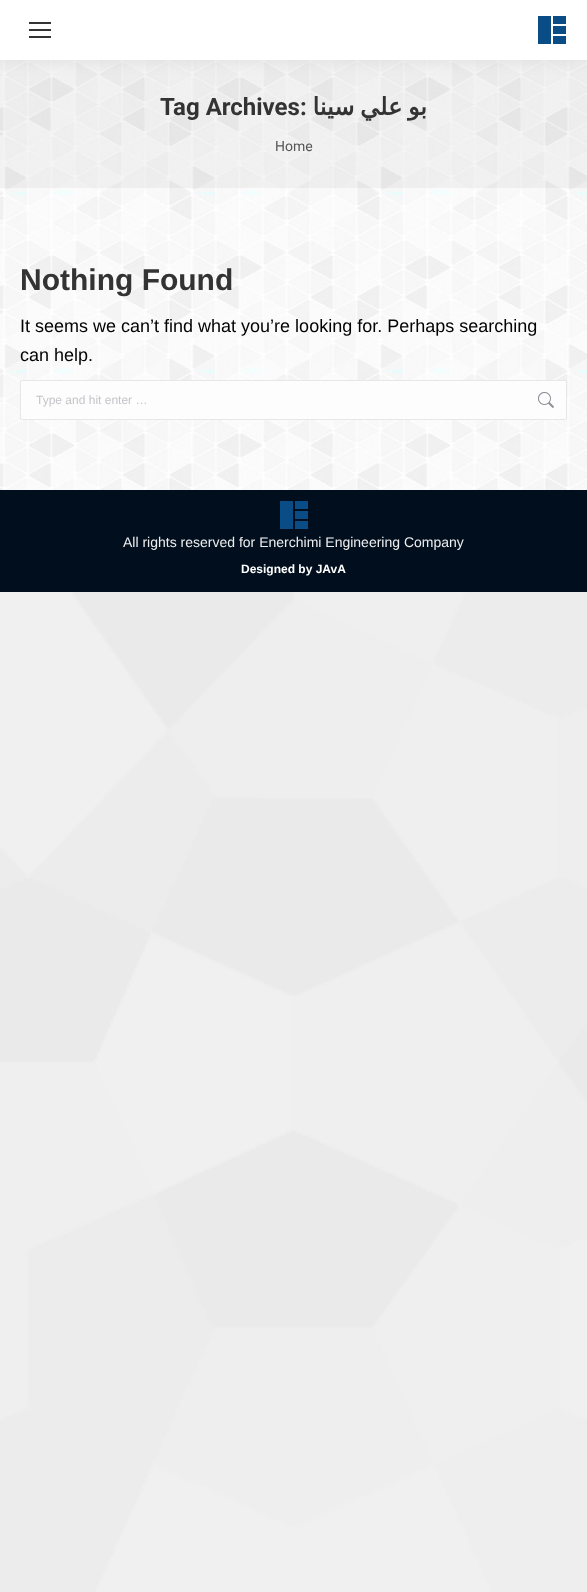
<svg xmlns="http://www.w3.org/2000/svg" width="587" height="1592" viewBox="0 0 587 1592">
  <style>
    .t1 { font: bold 24px Roboto; fill: #333; }
    .t2 { font: bold 24px DejaVu Sans; direction: rtl; fill: #333; }
    .t3 { font: 14px Roboto; fill: #565656; }
    .t4 { font: bold 30px Liberation Sans; fill: #333; }
    .t5 { font: 18px Liberation Sans; fill: #020202; }
    .t6 { font: 12px Liberation Sans; fill: #c4c5c9; }
    .t7 { font: 14px Liberation Sans; fill: #eee; }
    .t8 { font: bold 12px Liberation Sans; fill: #fff; }
  </style>
  <defs>
    <clipPath id="clip1"><rect x="160" y="90" width="267" height="34"/></clipPath>
  </defs>
  <rect width="100%" height="100%" fill="#f7f7f7"/>
  <image x="0" y="592" width="587" height="1000" href="images/1.png"/>
  <image x="0" y="60" width="587" height="430" href="images/2.png"/>
  <rect x="0" y="60" width="587" height="128" fill="#0000000a"/>
  <rect x="-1" y="-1" width="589" height="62" fill="#00000012" filter="blur(7.5px)"/>
  <rect x="0" y="0" width="587" height="60" fill="#fff"/>
  <rect x="29" y="22" width="22" height="2" fill="#333"/>
  <rect x="29" y="29" width="22" height="2" fill="#333"/>
  <rect x="29" y="36" width="22" height="2" fill="#333"/>
  <image x="538" y="16" width="28" height="28" href="images/3.png"/>
  <text x="160" y="115" class="t1">Tag Archives:</text>
  <g clip-path="url(#clip1)">
    <text x="427" y="115" word-spacing="-2" class="t2">بو علي سينا</text>
  </g>
  <text x="275" y="151" class="t3">Home</text>
  <text x="20" y="290" class="t4">Nothing Found</text>
  <text x="20" y="332" class="t5">It seems we can’t find what you’re looking for. Perhaps searching</text>
  <text x="20" y="361" class="t5">can help.</text>
  <rect x="20.5" y="380.5" width="546" height="39" rx="1.5" fill="#fdfdfd" stroke="#e7e7e7"/>
  <text x="36" y="404" class="t6">Type and hit enter …</text>
  <image x="538" y="392" width="16" height="16" href="images/4.png"/>
  <rect x="0" y="490" width="587" height="102" fill="#000e1e"/>
  <image x="280" y="501" width="28" height="28" href="images/5.png"/>
  <text x="123" y="547" class="t7">All rights reserved for Enerchimi Engineering Company</text>
  <text x="241" y="573" class="t8">Designed by JAvA</text>
</svg>
